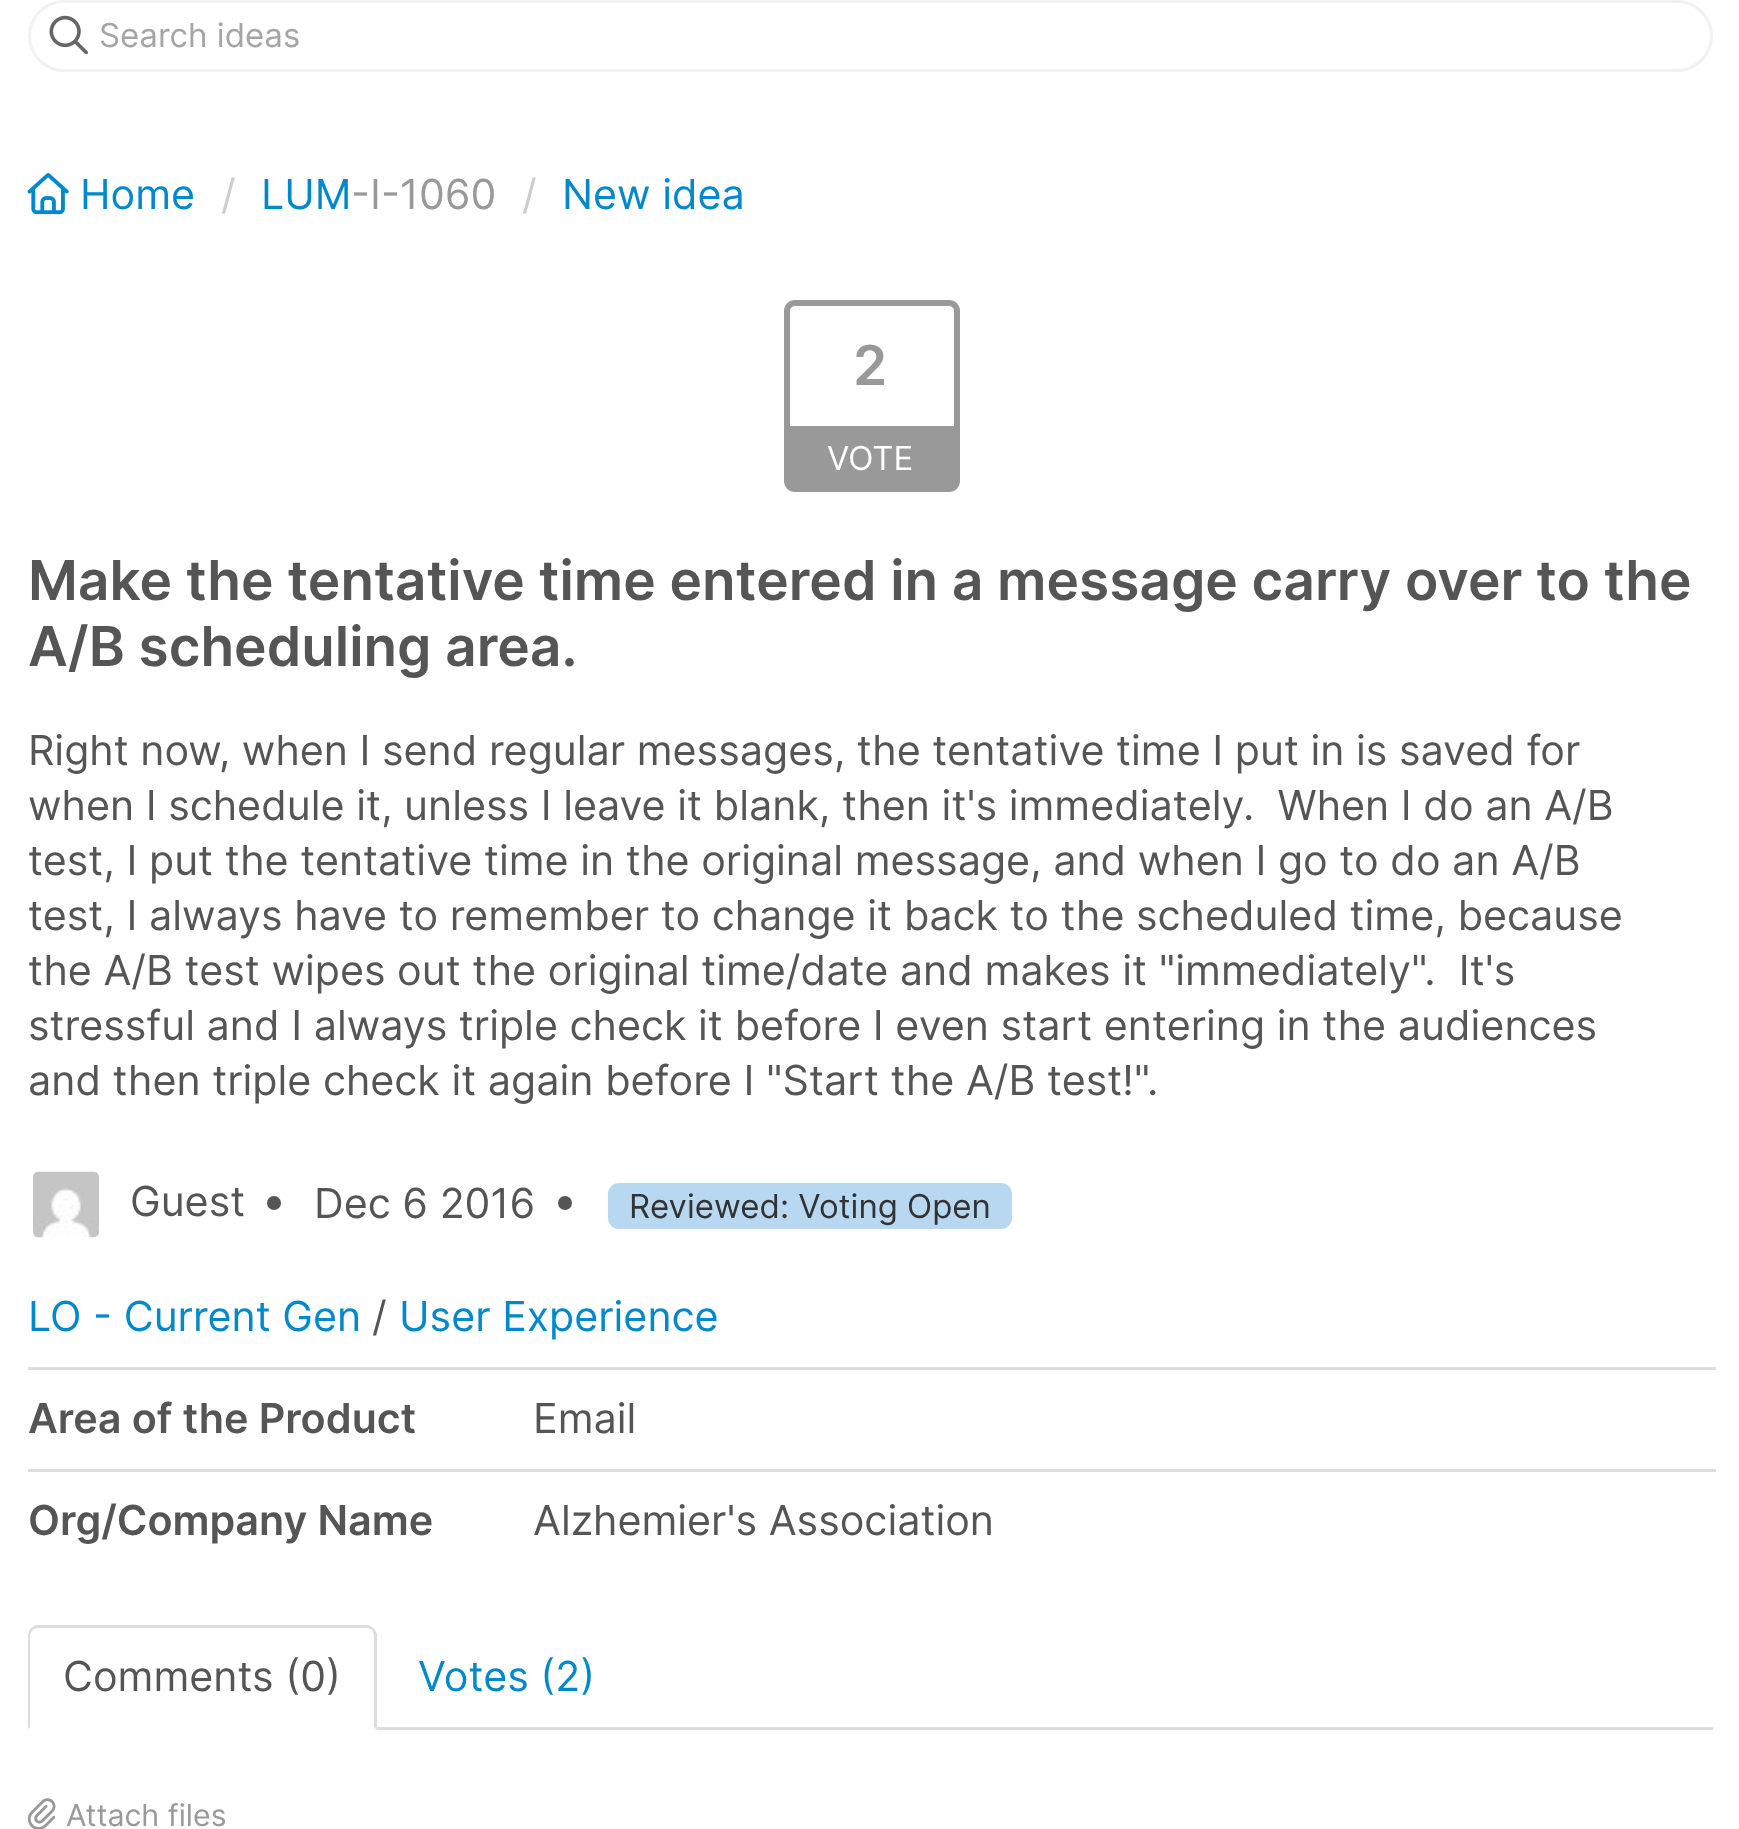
<svg xmlns="http://www.w3.org/2000/svg" width="1739" height="1829" viewBox="0 0 1739 1829">
  <style>
    .t1 { font: 33px Inter; fill: #a5a5a5; }
    .t2 { font: 41.25px Inter; fill: #08c; }
    .t3 { font: 41.25px Inter; fill: #ccc; }
    .t4 { font: 41.25px Inter; fill: #999; }
    .t5 { font: 600 55px Inter; fill: #999; }
    .t6 { font: 33px Inter; fill: #fff; }
    .t7 { font: 600 55px Inter; fill: #555; }
    .t8 { font: 41.25px Inter; fill: #555; }
    .t9 { font: 33px Inter; fill: #333; }
    .t10 { font: 600 41.25px Inter; fill: #555; }
    .t11 { font: 30.25px Inter; fill: #999; }
  </style>
  <rect width="100%" height="100%" fill="#fff"/>
  <rect x="29.5" y="1.5" width="1682" height="69" rx="34.5" fill="none" stroke="#f1f1f1" stroke-width="3"/>
  <image x="49" y="15" width="39" height="40" href="images/1.png"/>
  <text x="99" y="47" class="t1">Search ideas</text>
  <image x="27" y="172" width="42" height="43" href="images/2.png"/>
  <text x="80" y="209" class="t2">Home</text>
  <text x="221" y="209" class="t3">/</text>
  <text x="261" y="209" class="t2">LUM</text>
  <text x="351" y="209" class="t4">-I-1060</text>
  <text x="522" y="209" class="t3">/</text>
  <text x="562" y="209" class="t2">New idea</text>
  <rect x="787" y="303" width="170" height="186" rx="8" fill="none" stroke="#999" stroke-width="6"/>
  <text x="853" y="385" class="t5">2</text>
  <rect x="790" y="426" width="164" height="60" fill="#999"/>
  <text x="827" y="470" class="t6">VOTE</text>
  <text x="28" y="600" class="t7">Make the tentative time entered in a message carry over to the</text>
  <text x="28" y="666" class="t7">A/B scheduling area.</text>
  <text x="28" y="765" class="t8">Right now, when I send regular messages, the tentative time I put in is saved for</text>
  <text x="28" y="820" class="t8" xml:space="preserve">when I schedule it, unless I leave it blank, then it's immediately.  When I do an A/B</text>
  <text x="28" y="875" class="t8">test, I put the tentative time in the original message, and when I go to do an A/B</text>
  <text x="28" y="930" class="t8">test, I always have to remember to change it back to the scheduled time, because</text>
  <text x="28" y="985" class="t8" xml:space="preserve">the A/B test wipes out the original time/date and makes it "immediately".  It's</text>
  <text x="28" y="1040" class="t8">stressful and I always triple check it before I even start entering in the audiences</text>
  <text x="28" y="1095" class="t8">and then triple check it again before I "Start the A/B test!".</text>
  <image x="33" y="1171" width="66" height="67" href="images/3.png"/>
  <text x="130" y="1216" class="t8">Guest</text>
  <circle cx="274" cy="1203" r="7" fill="#555"/>
  <text x="314" y="1218" class="t8">Dec 6 2016</text>
  <circle cx="565" cy="1203" r="7" fill="#555"/>
  <rect x="608" y="1183" width="404" height="46" rx="11" fill="#b8d8f1"/>
  <text x="629" y="1218" class="t9">Reviewed: Voting Open</text>
  <text x="28" y="1331" class="t2">LO - Current Gen</text>
  <text x="372" y="1331" class="t8">/</text>
  <text x="399" y="1331" class="t2">User Experience</text>
  <text x="28" y="1433" class="t10">Area of the Product</text>
  <rect x="28" y="1367" width="1688" height="3" fill="#ddd"/>
  <text x="533" y="1433" class="t8">Email</text>
  <text x="28" y="1535" class="t10">Org/Company Name</text>
  <rect x="28" y="1469" width="1688" height="3" fill="#ddd"/>
  <text x="533" y="1535" class="t8">Alzhemier's Association</text>
  <rect x="377" y="1727" width="1336" height="3" fill="#ddd"/>
  <path d="M38 1628C36 1628 34 1629 33 1630L31 1628C32 1627 34 1626 36 1625H368C370 1626 372 1627 374 1628L372 1630C370 1629 368 1628 366 1628Z" fill="#ddd"/>
  <path d="M374 1628C375 1630 376 1632 377 1634V1730L374 1727V1636C374 1634 373 1632 372 1630Z" fill="#ddd"/>
  <path d="M28 1729V1636C28 1633 29 1630 31 1628L33 1630L30 1634V1727Z" fill="#ddd"/>
  <text x="63" y="1691" class="t8">Comments (0)</text>
  <text x="418" y="1691" class="t2">Votes (2)</text>
  <image x="27" y="1798" width="29" height="31" href="images/4.png"/>
  <text x="66" y="1826" class="t11">Attach files</text>
</svg>
